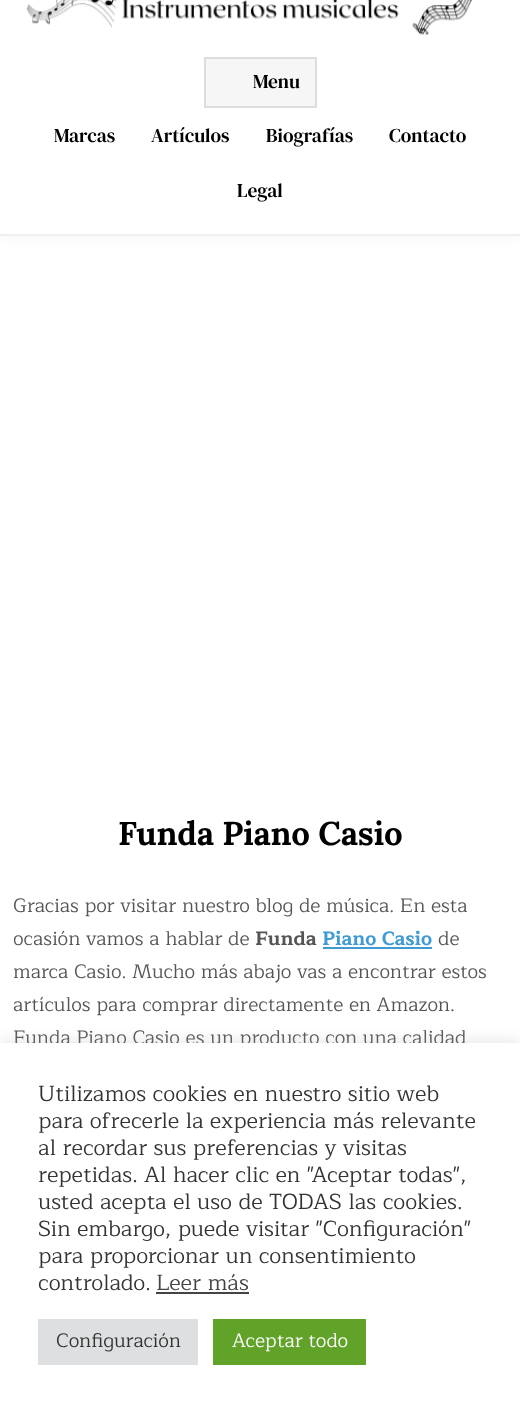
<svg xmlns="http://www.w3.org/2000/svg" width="520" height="1410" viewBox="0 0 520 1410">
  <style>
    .t1 { font: 19.5px DM Serif Text; fill: #000; }
    .t2 { font: bold 33px Lora; letter-spacing: -0.25px; fill: #000; }
    .t3 { font: 19.5px Maitree; fill: #555; }
    .t4 { font: bold 19.5px Maitree; fill: #555; }
    .t5 { font: bold 19.5px Maitree; fill: #409bd4; }
    .t6 { font: 22px Maitree; fill: #333; }
    .t7 { font: 22px Maitree; fill: #444; }
    .t8 { font: 19.5px Maitree; fill: #333; }
    .t9 { font: 19.5px Maitree; fill: #fff; }
  </style>
  <defs>
    <clipPath id="clip1"><rect x="14" y="816" width="493" height="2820"/></clipPath>
  </defs>
  <rect width="100%" height="100%" fill="#fff"/>
  <rect x="2" y="-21" width="517" height="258" fill="#0000000a" filter="blur(7px)"/>
  <rect x="0" y="0" width="520" height="234" fill="#fff"/>
  <rect x="0" y="234" width="520" height="2" fill="#efefef"/>
  <image x="27" y="0" width="446" height="35" href="images/1.png"/>
  <rect x="205" y="58" width="111" height="49" fill="#f6f6f6" stroke="#ddd" stroke-width="2"/>
  <text x="253" y="88" class="t1">Menu</text>
  <text x="54" y="142" class="t1">Marcas</text>
  <text x="151" y="142" class="t1">Artículos</text>
  <text x="266" y="142" class="t1">Biografías</text>
  <text x="389" y="142" class="t1">Contacto</text>
  <text x="237" y="197" class="t1">Legal</text>
  <text x="118" y="845" class="t2">Funda Piano Casio</text>
  <text x="13" y="912" class="t3">Gracias por visitar nuestro blog de música. En esta</text>
  <g clip-path="url(#clip1)">
    <text x="13" y="945" class="t3">ocasión vamos a hablar de</text>
  </g>
  <text x="255" y="945" class="t4">Funda</text>
  <text x="322" y="945" class="t5">Piano Casio</text>
  <rect x="323" y="947" width="109" height="2" fill="#409bd4"/>
  <text x="438" y="945" class="t3">de</text>
  <text x="13" y="978" class="t3">marca Casio. Mucho más abajo vas a encontrar estos</text>
  <text x="13" y="1011" class="t3">artículos para comprar directamente en Amazon.</text>
  <text x="13" y="1044" class="t3">Funda Piano Casio es un producto con una calidad</text>
  <rect x="0" y="1041" width="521" height="368" fill="#acabab4d" filter="blur(7.5px)"/>
  <rect x="0" y="1043" width="520" height="367" fill="#fff"/>
  <text x="38" y="1101" class="t6">Utilizamos cookies en nuestro sitio web</text>
  <text x="38" y="1128" class="t6">para ofrecerle la experiencia más relevante</text>
  <text x="38" y="1155" class="t6">al recordar sus preferencias y visitas</text>
  <text x="38" y="1182" class="t6">repetidas. Al hacer clic en "Aceptar todas",</text>
  <text x="38" y="1209" class="t6">usted acepta el uso de TODAS las cookies.</text>
  <text x="38" y="1236" class="t6">Sin embargo, puede visitar "Configuración"</text>
  <text x="38" y="1263" class="t6">para proporcionar un consentimiento</text>
  <text x="38" y="1290" class="t6">controlado.</text>
  <text x="156" y="1290" class="t7">Leer más</text>
  <rect x="156" y="1292" width="93" height="2" fill="#444"/>
  <rect x="38" y="1319" width="160" height="46" fill="#dedfe0"/>
  <text x="56" y="1347" class="t8">Configuración</text>
  <rect x="213" y="1319" width="153" height="46" fill="#61a229"/>
  <text x="232" y="1347" class="t9">Aceptar todo</text>
</svg>
